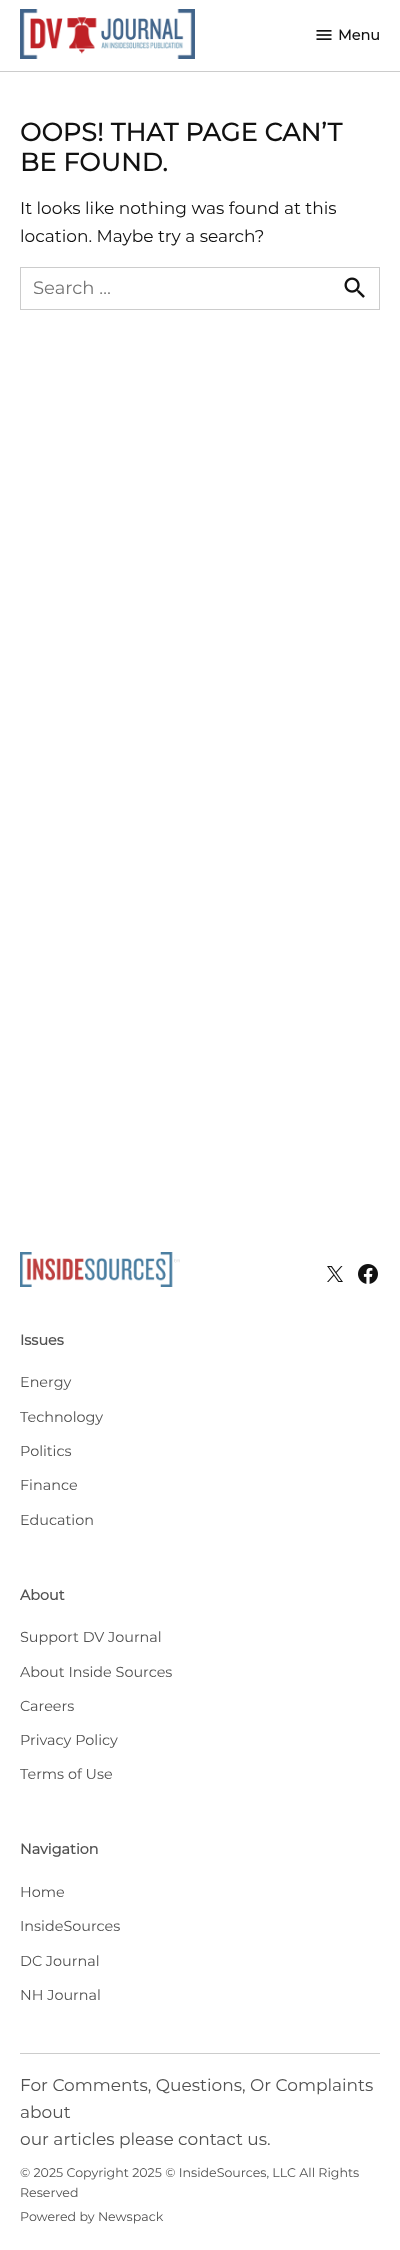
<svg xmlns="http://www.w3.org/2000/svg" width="400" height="2250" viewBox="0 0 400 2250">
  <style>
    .t1 { font: bold 14.4px Montserrat; fill: #111; }
    .t2 { font: bold 25.25px Montserrat; letter-spacing: 0.25px; fill: #111; }
    .t3 { font: 100 17px Montserrat; fill: #111; }
    .t4 { font: 100 18px Montserrat; fill: #757575; }
    .t5 { font: bold 14.4px Montserrat; fill: #515151; }
    .t6 { font: 100 14.4px Montserrat; fill: #515151; }
    .t7 { font: 100 17px Montserrat; fill: #515151; }
    .t8 { font: 100 12.6px Montserrat; fill: #515151; }
  </style>
  <rect width="100%" height="100%" fill="#fff"/>
  <rect x="0" y="71" width="400" height="1" fill="#ccc"/>
  <image x="20" y="9" width="175" height="50" href="images/1.png"/>
  <image x="316" y="30" width="16" height="10" href="images/2.png"/>
  <text x="338" y="40" class="t1">Menu</text>
  <text x="20" y="141" class="t2">OOPS! THAT PAGE CAN’T</text>
  <text x="20" y="171" class="t2">BE FOUND.</text>
  <text x="20" y="214" class="t3">It looks like nothing was found at this</text>
  <text x="20" y="242" class="t3">location. Maybe try a search?</text>
  <rect x="20.5" y="267.5" width="359" height="42" fill="none" stroke="#ccc"/>
  <text x="33" y="294" class="t4">Search …</text>
  <image x="344" y="277" width="21" height="21" href="images/3.png"/>
  <image x="20" y="1252" width="160" height="35" href="images/4.png"/>
  <image x="327" y="1266" width="16" height="16" href="images/5.png"/>
  <image x="358" y="1264" width="20" height="20" href="images/6.png"/>
  <text x="20" y="1345" class="t5">Issues</text>
  <text x="20" y="1387" class="t6">Energy</text>
  <text x="20" y="1422" class="t6">Technology</text>
  <text x="20" y="1456" class="t6">Politics</text>
  <text x="20" y="1490" class="t6">Finance</text>
  <text x="20" y="1525" class="t6">Education</text>
  <text x="20" y="1600" class="t5">About</text>
  <text x="20" y="1642" class="t6">Support DV Journal</text>
  <text x="20" y="1677" class="t6">About Inside Sources</text>
  <text x="20" y="1711" class="t6">Careers</text>
  <text x="20" y="1745" class="t6">Privacy Policy</text>
  <text x="20" y="1779" class="t6">Terms of Use</text>
  <text x="20" y="1854" class="t5">Navigation</text>
  <text x="20" y="1897" class="t6">Home</text>
  <text x="20" y="1931" class="t6">InsideSources</text>
  <text x="20" y="1966" class="t6">DC Journal</text>
  <text x="20" y="2000" class="t6">NH Journal</text>
  <rect x="20" y="2053" width="360" height="1" fill="#ccc"/>
  <text x="20" y="2091" class="t7">For Comments, Questions, Or Complaints</text>
  <text x="20" y="2118" class="t7">about</text>
  <text x="20" y="2145" class="t7">our articles please contact us.</text>
  <text x="20" y="2177" class="t8">© 2025 Copyright 2025 © InsideSources, LLC All Rights</text>
  <text x="20" y="2197" class="t8">Reserved</text>
  <text x="20" y="2221" class="t8">Powered by Newspack</text>
</svg>
